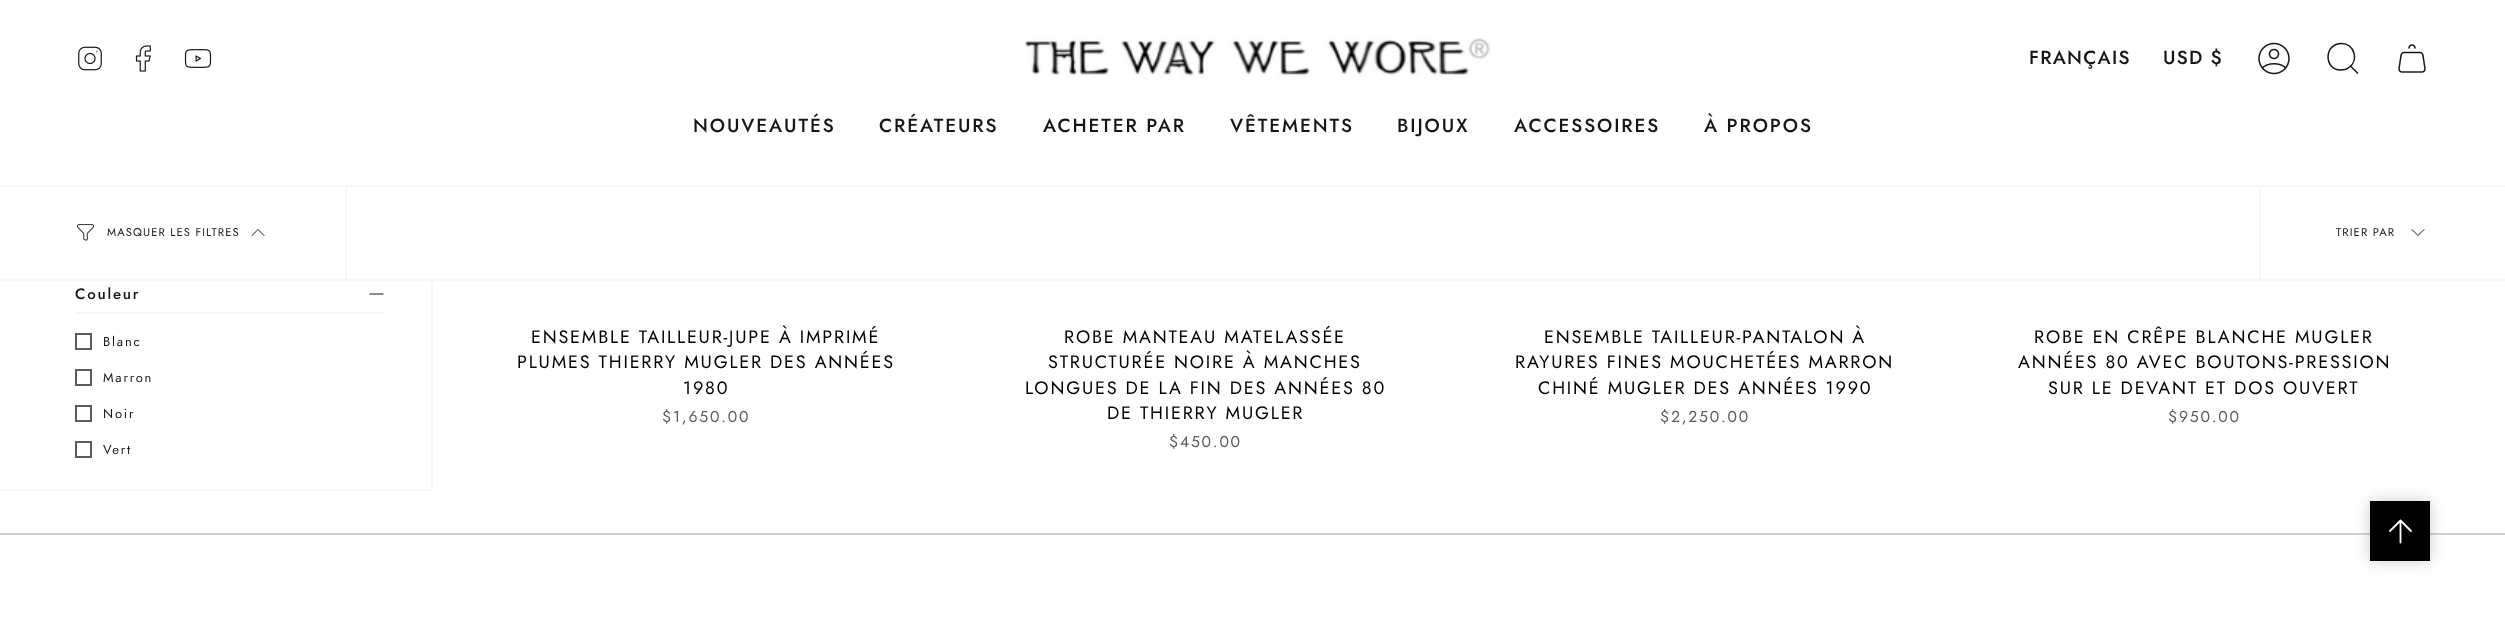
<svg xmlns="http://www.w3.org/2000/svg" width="2505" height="636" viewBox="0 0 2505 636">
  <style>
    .t1 { font: 500 19px Jost; letter-spacing: 1.25px; fill: #161616; }
    .t2 { font: 500 19px Jost; letter-spacing: 1.9px; fill: #161616; }
    .t3 { font: 11.25px Jost; letter-spacing: 1.1px; fill: #161616; }
    .t4 { font: 500 15px Jost; letter-spacing: 1.8px; fill: #161616; }
    .t5 { font: 13px Jost; letter-spacing: 1.8px; fill: #161616; }
    .t6 { font: 18px Jost; letter-spacing: 1.8px; fill: #000; }
    .t7 { font: 15.75px Jost; letter-spacing: 1.8px; fill: #5c5c5c; }
  </style>
  <rect width="100%" height="100%" fill="#fff"/>
  <image x="78" y="46" width="24" height="25" href="images/1.png"/>
  <image x="135" y="45" width="16" height="27" href="images/2.png"/>
  <image x="184" y="49" width="28" height="19" href="images/3.png"/>
  <image x="1025" y="37" width="466" height="41" href="images/4.png"/>
  <text x="2029" y="64" class="t1">FRANÇAIS</text>
  <text x="2163" y="64" class="t1">USD $</text>
  <image x="2258" y="42" width="32" height="33" href="images/5.png"/>
  <path d="M2341.5 43.5C2354 43.5 2359.5 60 2349 67.5C2346.5 69.5 2343.5 70 2340.5 70C2323.5 69.5 2324 43.5 2341.5 43.5ZM2350.5 66L2358 73.5" fill="none" stroke="#161616" stroke-width="1.5"/>
  <image x="2398" y="44" width="28" height="29" href="images/6.png"/>
  <text x="693" y="132" class="t2">NOUVEAUTÉS</text>
  <text x="879" y="132" class="t2">CRÉATEURS</text>
  <text x="1043" y="132" class="t2">ACHETER PAR</text>
  <text x="1230" y="132" class="t2">VÊTEMENTS</text>
  <text x="1397" y="132" class="t2">BIJOUX</text>
  <text x="1514" y="132" class="t2">ACCESSOIRES</text>
  <text x="1704" y="132" class="t2">À PROPOS</text>
  <rect x="0" y="185" width="2505" height="2" fill="#f7f7f7"/>
  <rect x="0" y="279" width="2505" height="2" fill="#f7f7f7"/>
  <rect x="345" y="186" width="2" height="93" fill="#f7f7f7"/>
  <image x="77" y="224" width="17" height="17" href="images/7.png"/>
  <text x="107" y="236" class="t3">MASQUER LES FILTRES</text>
  <path d="M252 235.5L258 229.5L264 235.5" fill="none" stroke="#161616" stroke-linecap="round" stroke-linejoin="round"/>
  <rect x="2259" y="186" width="2" height="93" fill="#f7f7f7"/>
  <text x="2336" y="236" class="t3">TRIER PAR</text>
  <path d="M2412 229.5L2418 235.5L2424 229.5" fill="none" stroke="#161616" stroke-linecap="round" stroke-linejoin="round"/>
  <rect x="431" y="281" width="2" height="210" fill="#f7f7f7"/>
  <rect x="0" y="489" width="432" height="2" fill="#f7f7f7"/>
  <rect x="75" y="312" width="309" height="2" fill="#f7f7f7"/>
  <text x="75" y="299" class="t4">Couleur</text>
  <path d="M370 294H383" fill="none" stroke="#161616" stroke-width="1.1" stroke-linecap="round" stroke-linejoin="round"/>
  <rect x="76" y="334" width="15" height="15" fill="none" stroke="#5c5c5c" stroke-width="2"/>
  <text x="103" y="346" class="t5">Blanc</text>
  <rect x="76" y="370" width="15" height="15" fill="none" stroke="#5c5c5c" stroke-width="2"/>
  <text x="103" y="382" class="t5">Marron</text>
  <rect x="76" y="406" width="15" height="15" fill="none" stroke="#5c5c5c" stroke-width="2"/>
  <text x="103" y="418" class="t5">Noir</text>
  <rect x="76" y="442" width="15" height="15" fill="none" stroke="#5c5c5c" stroke-width="2"/>
  <text x="103" y="454" class="t5">Vert</text>
  <text x="531" y="343" class="t6">ENSEMBLE TAILLEUR-JUPE À IMPRIMÉ</text>
  <text x="517" y="368" class="t6">PLUMES THIERRY MUGLER DES ANNÉES</text>
  <text x="683" y="394" class="t6">1980</text>
  <text x="662" y="422" class="t7">$1,650.00</text>
  <text x="1064" y="343" class="t6">ROBE MANTEAU MATELASSÉE</text>
  <text x="1048" y="368" class="t6">STRUCTURÉE NOIRE À MANCHES</text>
  <text x="1025" y="394" class="t6">LONGUES DE LA FIN DES ANNÉES 80</text>
  <text x="1107" y="419" class="t6">DE THIERRY MUGLER</text>
  <text x="1169" y="447" class="t7">$450.00</text>
  <text x="1544" y="343" class="t6">ENSEMBLE TAILLEUR-PANTALON À</text>
  <text x="1515" y="368" class="t6">RAYURES FINES MOUCHETÉES MARRON</text>
  <text x="1538" y="394" class="t6">CHINÉ MUGLER DES ANNÉES 1990</text>
  <text x="1660" y="422" class="t7">$2,250.00</text>
  <text x="2034" y="343" class="t6">ROBE EN CRÊPE BLANCHE MUGLER</text>
  <text x="2018" y="368" class="t6">ANNÉES 80 AVEC BOUTONS-PRESSION</text>
  <text x="2048" y="394" class="t6">SUR LE DEVANT ET DOS OUVERT</text>
  <text x="2168" y="422" class="t7">$950.00</text>
  <rect x="0" y="533" width="2505" height="2" fill="#d0d0d0"/>
  <rect x="2370" y="501" width="60" height="60" fill="#00000033" filter="blur(7.5px)"/>
  <rect x="2370" y="501" width="60" height="60" fill="#000"/>
  <path d="M2400.5 542.5V520.5M2400.5 520.5L2411 531M2400.5 520.5L2390 531" fill="none" stroke="#fff" stroke-width="1.8" stroke-linecap="round" stroke-linejoin="round"/>
</svg>
